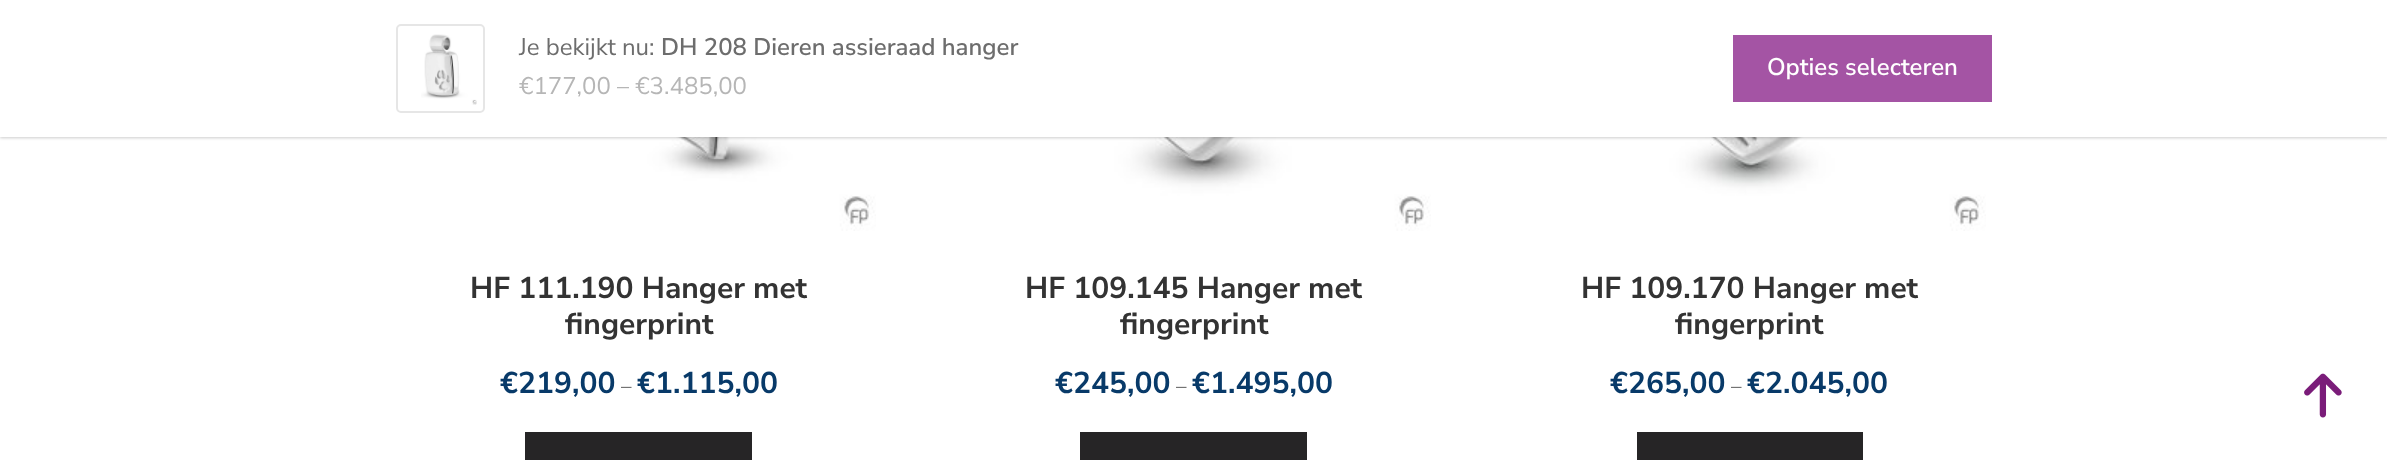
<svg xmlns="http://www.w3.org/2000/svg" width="2387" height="460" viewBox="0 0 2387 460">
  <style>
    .t1 { font: 24px Nunito Sans; fill: #6d6d6d; }
    .t2 { font: 600 24px Nunito Sans; fill: #6d6d6d; }
    .t3 { font: 24px Nunito Sans; fill: #b6b6b6; }
    .t4 { font: 600 24px Nunito Sans; fill: #fff; }
    .t5 { font: bold 30px Nunito Sans; fill: #333; }
    .t6 { font: bold 30px Nunito Sans; fill: #083a69; }
    .t7 { font: 21px Nunito Sans; fill: #6d6d6d; }
  </style>
  <rect width="100%" height="100%" fill="#fff"/>
  <image x="506" y="137" width="370" height="94" href="images/2.png"/>
  <image x="1081" y="137" width="350" height="94" href="images/3.png"/>
  <image x="1623" y="137" width="363" height="94" href="images/4.png"/>
  <rect x="0" y="2" width="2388" height="136" fill="#00000033" filter="blur(1.5px)"/>
  <rect x="0" y="0" width="2387" height="137" fill="#fff"/>
  <rect x="397" y="25" width="87" height="87" rx="4" fill="none" stroke="#e6e6e6" stroke-width="2"/>
  <image x="421" y="34" width="56" height="71" href="images/1.png"/>
  <text x="519" y="55" class="t1">Je bekijkt nu:</text>
  <text x="661" y="55" class="t2">DH 208 Dieren assieraad hanger</text>
  <text x="519" y="94" class="t3">€177,00 – €3.485,00</text>
  <rect x="1733" y="35" width="259" height="67" fill="#a454a4"/>
  <text x="1767" y="75" class="t4">Opties selecteren</text>
  <text x="470" y="298" class="t5">HF 111.190 Hanger met</text>
  <text x="565" y="334" class="t5">fingerprint</text>
  <text x="500" y="393" class="t6">€219,00</text>
  <text x="621" y="393" class="t7">–</text>
  <text x="637" y="393" class="t6">€1.115,00</text>
  <rect x="525" y="432" width="227" height="28" fill="#262526"/>
  <text x="1025" y="298" class="t5">HF 109.145 Hanger met</text>
  <text x="1120" y="334" class="t5">fingerprint</text>
  <text x="1055" y="393" class="t6">€245,00</text>
  <text x="1176" y="393" class="t7">–</text>
  <text x="1192" y="393" class="t6">€1.495,00</text>
  <rect x="1080" y="432" width="227" height="28" fill="#262526"/>
  <text x="1581" y="298" class="t5">HF 109.170 Hanger met</text>
  <text x="1675" y="334" class="t5">fingerprint</text>
  <text x="1610" y="393" class="t6">€265,00</text>
  <text x="1731" y="393" class="t7">–</text>
  <text x="1747" y="393" class="t6">€2.045,00</text>
  <rect x="1637" y="432" width="226" height="28" fill="#262526"/>
  <image x="2304" y="373" width="38" height="45" href="images/5.png"/>
</svg>
